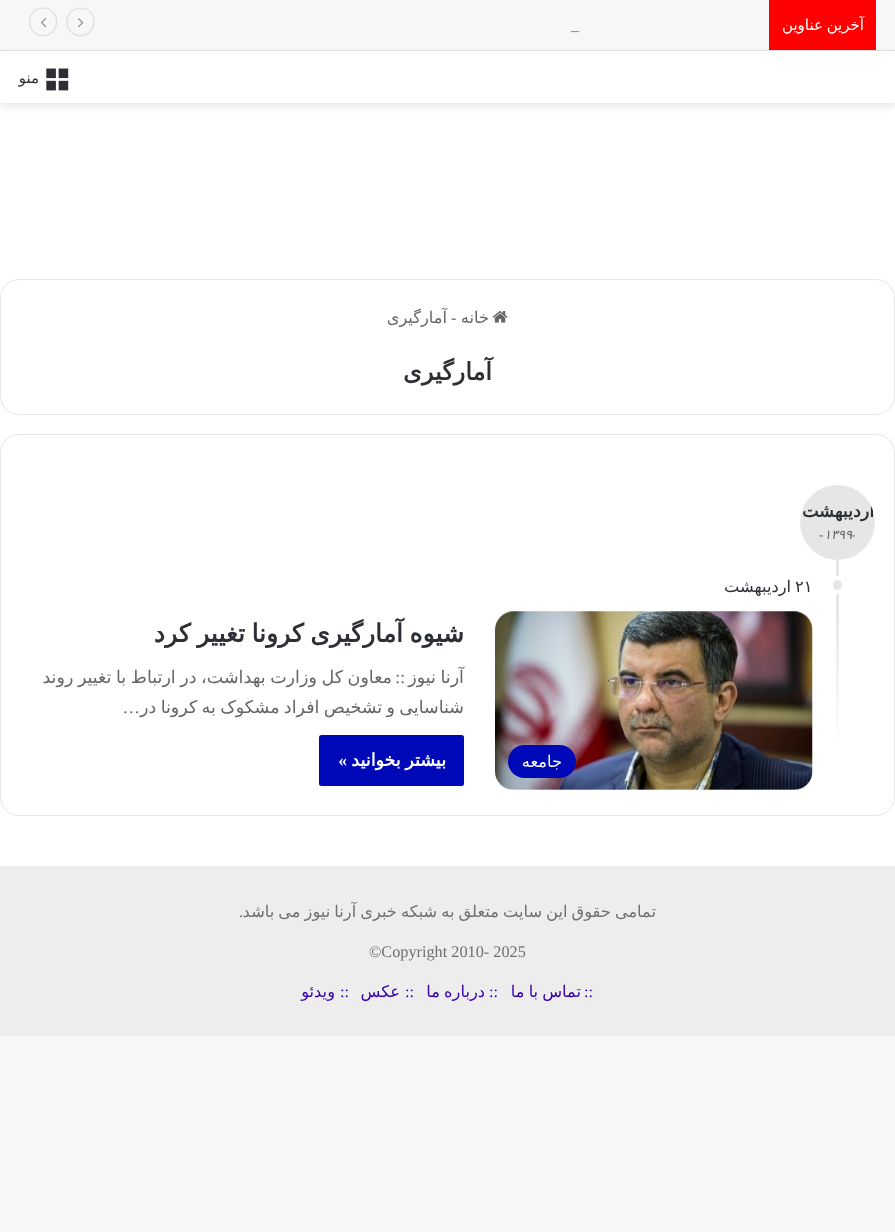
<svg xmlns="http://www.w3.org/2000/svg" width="895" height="1232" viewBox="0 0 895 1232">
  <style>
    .t1 { font: 15px DejaVu Sans; direction: rtl; fill: #fff; }
    .t2 { font: 16.25px Liberation Serif; fill: #777; }
    .t3 { font: 15px DejaVu Sans; direction: rtl; fill: #2c2f34; }
    .t4 { font: 16.25px DejaVu Sans; direction: rtl; fill: #666; }
    .t5 { font: 16.25px Liberation Serif; fill: #666; }
    .t6 { font: bold 24px DejaVu Sans; direction: rtl; fill: #2c2f34; }
    .t7 { font: bold 17.5px DejaVu Sans; direction: rtl; fill: #2c2f34; }
    .t8 { font: italic 13px DejaVu Sans; fill: #666; }
    .t9 { font: italic 13px Liberation Serif; fill: #666; }
    .t10 { font: 16.25px DejaVu Sans; fill: #2c2f34; }
    .t11 { font: 16.25px DejaVu Sans; direction: rtl; fill: #2c2f34; }
    .t12 { font: 16.25px DejaVu Sans; direction: rtl; fill: #fff; }
    .t13 { font: bold 25px DejaVu Sans; direction: rtl; fill: #2c2f34; }
    .t14 { font: 17.5px DejaVu Sans; direction: rtl; fill: #666; }
    .t15 { font: 17.5px Liberation Serif; direction: rtl; fill: #666; }
    .t16 { font: bold 17.5px DejaVu Sans; direction: rtl; fill: #fff; }
    .t17 { font: bold 17.5px Liberation Serif; direction: rtl; fill: #fff; }
    .t18 { font: 16.25px DejaVu Sans; direction: rtl; fill: #707070; }
    .t19 { font: 16.25px Liberation Serif; direction: rtl; fill: #707070; }
    .t20 { font: 16.25px Liberation Serif; fill: #707070; }
    .t21 { font: 16.25px Liberation Serif; direction: rtl; fill: #3700af; }
    .t22 { font: 16.25px DejaVu Sans; direction: rtl; fill: #3700af; }
  </style>
  <defs>
    <clipPath id="clip1"><rect x="800" y="485" width="75" height="75" rx="37.5"/></clipPath>
    <linearGradient id="g1" gradientUnits="userSpaceOnUse" x1="838" y1="603" x2="838" y2="790"><stop offset="0" stop-color="#e5e5e5"/><stop offset="0.8" stop-color="#fff"/></linearGradient>
  </defs>
  <rect width="100%" height="100%" fill="#f7f7f7"/>
  <rect x="0" y="103" width="895" height="763" fill="#fff"/>
  <rect x="0" y="55" width="895" height="51" fill="#0000001a" filter="blur(4.5px)"/>
  <rect x="0" y="50" width="895" height="1" fill="#ddd"/>
  <rect x="769" y="0" width="107" height="50" fill="#f00"/>
  <text x="864" y="30" word-spacing="-1" class="t1">آخرین عناوین</text>
  <text x="571" y="30" class="t2">_</text>
  <path d="M80.5 35.5C62.5 35.5 62.5 8 80.5 8C98.5 8 98.5 35.5 80.5 35.5Z" fill="none" stroke="#ddd" stroke-width="1.2"/>
  <image x="78" y="18" width="6" height="10" href="images/1.png"/>
  <path d="M43 35.5C25 35.5 25 8 43 8C61 8 61 35.5 43 35.5Z" fill="none" stroke="#ddd" stroke-width="1.2"/>
  <image x="40" y="18" width="7" height="10" href="images/2.png"/>
  <rect x="0" y="51" width="895" height="52" fill="#fff"/>
  <image x="46" y="68" width="23" height="23" href="images/3.png"/>
  <text x="39" y="83" class="t3">منو</text>
  <rect x="0.5" y="279.5" width="894" height="135" rx="18.5" fill="none" stroke="#e6e6e6"/>
  <image x="492" y="311" width="16" height="12" href="images/4.png"/>
  <text x="489" y="323" class="t4">خانه</text>
  <text x="451" y="323" class="t5">-</text>
  <text x="447" y="323" class="t4">آمارگیری</text>
  <text x="492" y="380" class="t6">آمارگیری</text>
  <rect x="0.5" y="434.5" width="894" height="381" rx="18.5" fill="none" stroke="#e6e6e6"/>
  <rect x="836" y="485" width="3" height="118" fill="#e6e6e6"/>
  <circle cx="837.5" cy="522.5" r="37.5" fill="#e6e6e6"/>
  <g clip-path="url(#clip1)">
    <text x="874" y="517" class="t7">اردیبهشت</text>
  </g>
  <text x="824" y="539" class="t8">۱۳۹۹</text>
  <text x="851" y="539" class="t9">-</text>
  <text x="819" y="539" class="t9">-</text>
  <rect x="831" y="578" width="13" height="14" rx="6.5" fill="#e6e6e6" stroke="#fff" stroke-width="4"/>
  <text x="795" y="592" class="t10">۲۱</text>
  <text x="791" y="592" class="t11">اردیبهشت</text>
  <image x="495" y="611" width="318" height="179" href="images/5.png"/>
  <rect x="508" y="745" width="68" height="33" rx="16.5" fill="#0009b7"/>
  <text x="562" y="767" class="t12">جامعه</text>
  <text x="464" y="642" word-spacing="-1.5" class="t13">شیوه آمارگیری کرونا تغییر کرد</text>
  <text x="464" y="683" word-spacing="-1" class="t14">آرنا نیوز</text>
  <text x="392" y="683" word-spacing="-1" class="t14">معاون کل وزارت بهداشت، در ارتباط با تغییر روند</text>
  <text x="405" y="683" class="t15">::</text>
  <text x="464" y="713" word-spacing="-1.25" class="t14">شناسایی و تشخیص افراد مشکوک به کرونا در</text>
  <text x="140" y="713" class="t15">…</text>
  <rect x="319" y="735" width="145" height="51" rx="2.5" fill="#0009b7"/>
  <text x="446" y="766" word-spacing="-1" class="t16">بیشتر بخوانید</text>
  <text x="347" y="766" class="t17">»</text>
  <rect x="836" y="603" width="3" height="135" fill="url(#g1)"/>
  <rect x="0" y="866" width="895" height="170" fill="#ededed"/>
  <text x="656" y="917" word-spacing="-1.1" class="t18">تمامی حقوق این سایت متعلق به شبکه خبری آرنا نیوز می باشد</text>
  <text x="243" y="917" class="t19">.</text>
  <text x="369" y="957" class="t20">©Copyright 2010- 2025</text>
  <text x="593" y="997" class="t21">::</text>
  <text x="581" y="997" word-spacing="-1" class="t22">تماس با ما</text>
  <text x="498" y="997" class="t21">::</text>
  <text x="485" y="997" word-spacing="-1" class="t22">درباره ما</text>
  <text x="414" y="997" class="t21">::</text>
  <text x="400" y="997" class="t22">عکس</text>
  <text x="349" y="997" class="t21">::</text>
  <text x="335" y="997" class="t22">ویدئو</text>
</svg>
